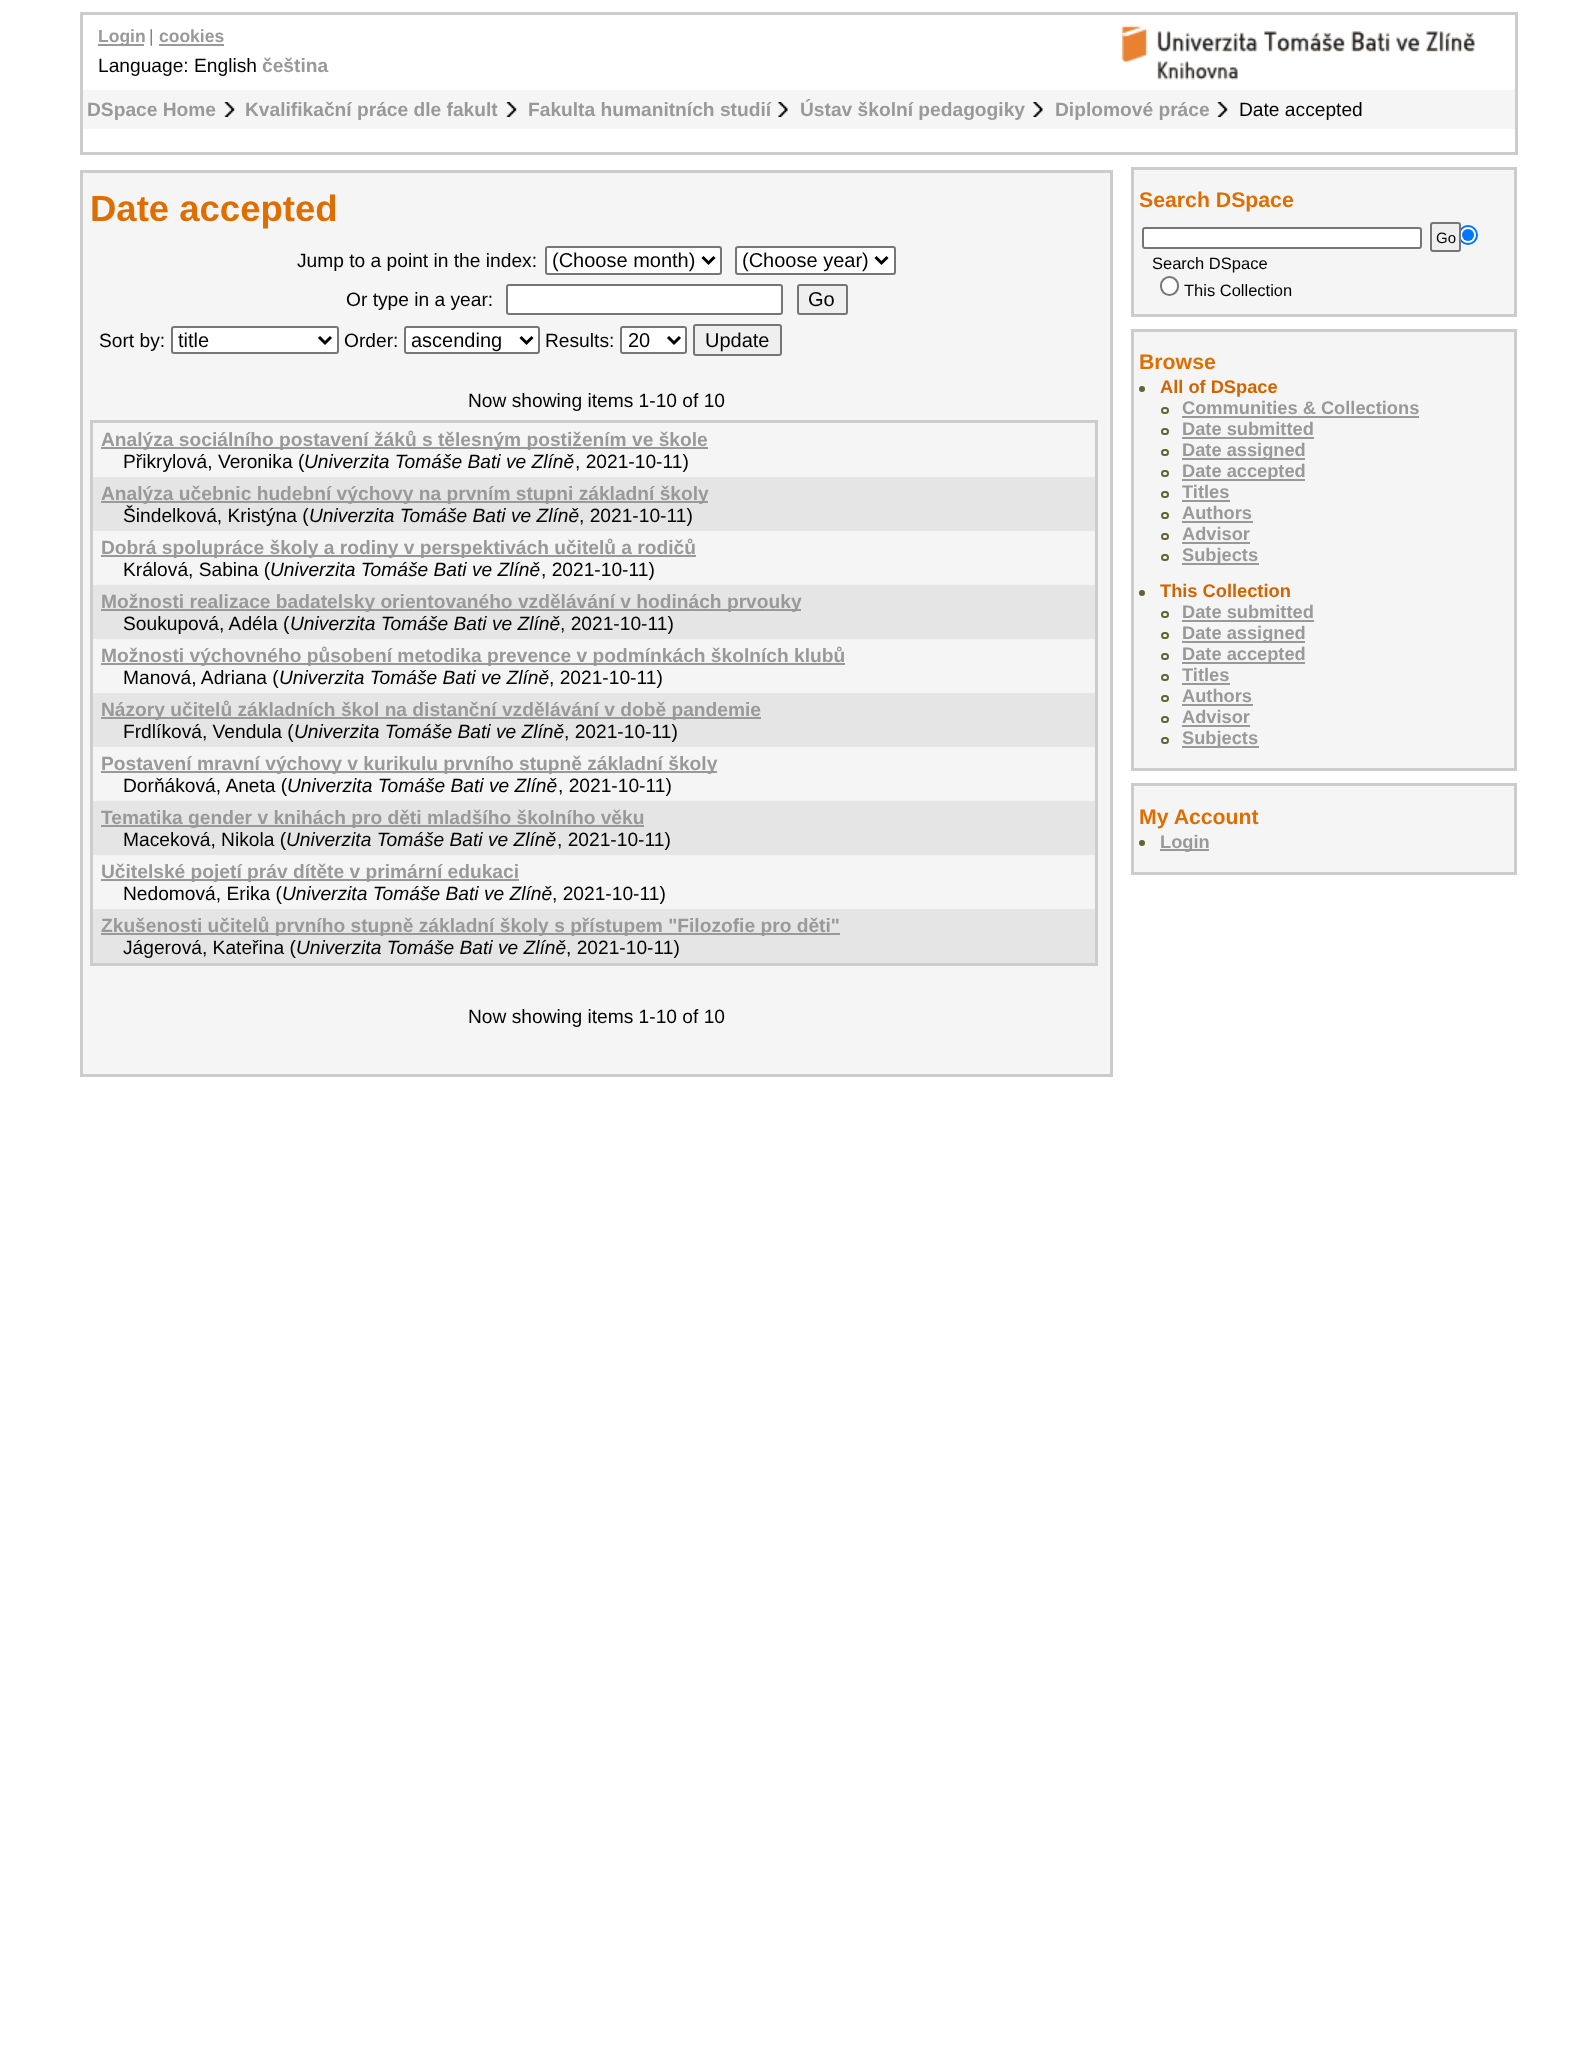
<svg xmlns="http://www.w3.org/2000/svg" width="1583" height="2067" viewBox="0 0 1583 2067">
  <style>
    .t1 { font: bold 17.5px Liberation Sans; fill: #999; }
    .t2 { font: 17.5px Liberation Sans; fill: #808080; }
    .t3 { font: 19.2px Liberation Sans; fill: #000; }
    .t4 { font: bold 19.2px Liberation Sans; fill: #999; }
    .t5 { font: bold 36.5px Liberation Sans; fill: #df6e00; }
    .t6 { font: 20px Liberation Sans; fill: #000; }
    .t7 { font: italic 19.2px Liberation Sans; fill: #000; }
    .t8 { font: bold 21.25px Liberation Sans; fill: #df6e00; }
    .t9 { font: 15px Liberation Sans; fill: #000; }
    .t10 { font: 16.5px Liberation Sans; fill: #000; }
    .t11 { font: bold 18.25px Liberation Sans; fill: #d26400; }
    .t12 { font: bold 18.25px Liberation Sans; fill: #999; }
  </style>
  <rect width="100%" height="100%" fill="#fff"/>
  <rect x="81.5" y="13.5" width="1435" height="140" fill="none" stroke="#ccc" stroke-width="3"/>
  <rect x="98" y="44" width="46" height="2" fill="#999"/>
  <text x="98" y="42" class="t1">Login</text>
  <text x="149" y="42" class="t2">|</text>
  <text x="159" y="42" class="t1">cookies</text>
  <rect x="159" y="44" width="65" height="2" fill="#999"/>
  <image x="1121" y="25" width="354" height="55" href="images/1.png"/>
  <text x="98" y="72" class="t3">Language: English</text>
  <text x="262" y="72" class="t4">čeština</text>
  <rect x="83" y="90" width="1432" height="39" fill="#f5f5f5"/>
  <text x="87" y="116" class="t4">DSpace Home</text>
  <image x="224" y="102" width="11" height="15" href="images/2.png"/>
  <text x="245" y="116" class="t4">Kvalifikační práce dle fakult</text>
  <image x="506" y="102" width="11" height="15" href="images/3.png"/>
  <text x="528" y="116" class="t4">Fakulta humanitních studií</text>
  <image x="778" y="102" width="10" height="15" href="images/4.png"/>
  <text x="800" y="116" class="t4">Ústav školní pedagogiky</text>
  <image x="1033" y="102" width="10" height="15" href="images/4.png"/>
  <text x="1055" y="116" class="t4">Diplomové práce</text>
  <image x="1217" y="102" width="11" height="15" href="images/5.png"/>
  <text x="1239" y="116" class="t3">Date accepted</text>
  <rect x="81.5" y="171.5" width="1030" height="904" fill="#f5f5f5" stroke="#ccc" stroke-width="3"/>
  <text x="90" y="221" class="t5">Date accepted</text>
  <text x="297" y="267" class="t3">Jump to a point in the index:</text>
  <rect x="546" y="247" width="175" height="27" rx="2" fill="#fff" stroke="#767676" stroke-width="2"/>
  <path d="M702.5 257L708.5 263L714.5 257" fill="none" stroke="#000" stroke-width="3"/>
  <text x="552" y="267" class="t6">(Choose month)</text>
  <rect x="736" y="247" width="159" height="27" rx="2" fill="#fff" stroke="#767676" stroke-width="2"/>
  <path d="M875.5 257L881.5 263L887.5 257" fill="none" stroke="#000" stroke-width="3"/>
  <text x="742" y="267" class="t6">(Choose year)</text>
  <text x="346" y="306" class="t3">Or type in a year:</text>
  <rect x="507" y="285" width="275" height="29" rx="2" fill="#fff" stroke="#767676" stroke-width="2"/>
  <rect x="798" y="285" width="49" height="29" rx="2" fill="#efefef" stroke="#767676" stroke-width="2"/>
  <text x="808" y="306" class="t6">Go</text>
  <text x="99" y="347" class="t3">Sort by:</text>
  <rect x="172" y="327" width="166" height="26" rx="2" fill="#fff" stroke="#767676" stroke-width="2"/>
  <path d="M319 337L325 343L331 337" fill="none" stroke="#000" stroke-width="3"/>
  <text x="178" y="347" class="t6">title</text>
  <text x="344" y="347" class="t3">Order:</text>
  <rect x="405" y="327" width="134" height="26" rx="2" fill="#fff" stroke="#767676" stroke-width="2"/>
  <path d="M520.5 337L526.5 343L532.5 337" fill="none" stroke="#000" stroke-width="3"/>
  <text x="411" y="347" class="t6">ascending</text>
  <text x="545" y="347" class="t3">Results:</text>
  <rect x="621" y="327" width="65" height="26" rx="2" fill="#fff" stroke="#767676" stroke-width="2"/>
  <path d="M668 337L674 343L680 337" fill="none" stroke="#000" stroke-width="3"/>
  <text x="628" y="347" class="t6">20</text>
  <rect x="694" y="325" width="87" height="30" rx="2" fill="#efefef" stroke="#767676" stroke-width="2"/>
  <text x="705" y="347" class="t6">Update</text>
  <text x="468" y="407" class="t3">Now showing items 1-10 of 10</text>
  <rect x="91.5" y="421.5" width="1005" height="543" fill="none" stroke="#ccc" stroke-width="3"/>
  <rect x="101" y="447" width="607" height="2" fill="#999"/>
  <text x="101" y="446" class="t4">Analýza sociálního postavení žáků s tělesným postižením ve škole</text>
  <text x="123" y="468" class="t3">Přikrylová, Veronika (</text>
  <text x="304" y="468" class="t7">Univerzita Tomáše Bati ve Zlíně</text>
  <text x="575" y="468" class="t3">, 2021-10-11)</text>
  <rect x="93" y="477" width="1002" height="54" fill="#e5e5e5"/>
  <rect x="101" y="501" width="607" height="2" fill="#999"/>
  <text x="101" y="500" class="t4">Analýza učebnic hudební výchovy na prvním stupni základní školy</text>
  <text x="123" y="522" class="t3">Šindelková, Kristýna (</text>
  <text x="309" y="522" class="t7">Univerzita Tomáše Bati ve Zlíně</text>
  <text x="579" y="522" class="t3">, 2021-10-11)</text>
  <rect x="101" y="555" width="595" height="2" fill="#999"/>
  <text x="101" y="554" class="t4">Dobrá spolupráce školy a rodiny v perspektivách učitelů a rodičů</text>
  <text x="123" y="576" class="t3">Králová, Sabina (</text>
  <text x="270" y="576" class="t7">Univerzita Tomáše Bati ve Zlíně</text>
  <text x="541" y="576" class="t3">, 2021-10-11)</text>
  <rect x="93" y="585" width="1002" height="54" fill="#e5e5e5"/>
  <rect x="101" y="609" width="700" height="2" fill="#999"/>
  <text x="101" y="608" class="t4">Možnosti realizace badatelsky orientovaného vzdělávání v hodinách prvouky</text>
  <text x="123" y="630" class="t3">Soukupová, Adéla (</text>
  <text x="290" y="630" class="t7">Univerzita Tomáše Bati ve Zlíně</text>
  <text x="560" y="630" class="t3">, 2021-10-11)</text>
  <rect x="101" y="663" width="744" height="2" fill="#999"/>
  <text x="101" y="662" class="t4">Možnosti výchovného působení metodika prevence v podmínkách školních klubů</text>
  <text x="123" y="684" class="t3">Manová, Adriana (</text>
  <text x="279" y="684" class="t7">Univerzita Tomáše Bati ve Zlíně</text>
  <text x="549" y="684" class="t3">, 2021-10-11)</text>
  <rect x="93" y="693" width="1002" height="54" fill="#e5e5e5"/>
  <rect x="101" y="717" width="660" height="2" fill="#999"/>
  <text x="101" y="716" class="t4">Názory učitelů základních škol na distanční vzdělávání v době pandemie</text>
  <text x="123" y="738" class="t3">Frdlíková, Vendula (</text>
  <text x="294" y="738" class="t7">Univerzita Tomáše Bati ve Zlíně</text>
  <text x="564" y="738" class="t3">, 2021-10-11)</text>
  <rect x="101" y="771" width="616" height="2" fill="#999"/>
  <text x="101" y="770" class="t4">Postavení mravní výchovy v kurikulu prvního stupně základní školy</text>
  <text x="123" y="792" class="t3">Dorňáková, Aneta (</text>
  <text x="287" y="792" class="t7">Univerzita Tomáše Bati ve Zlíně</text>
  <text x="558" y="792" class="t3">, 2021-10-11)</text>
  <rect x="93" y="801" width="1002" height="54" fill="#e5e5e5"/>
  <rect x="101" y="825" width="543" height="2" fill="#999"/>
  <text x="101" y="824" class="t4">Tematika gender v knihách pro děti mladšího školního věku</text>
  <text x="123" y="846" class="t3">Maceková, Nikola (</text>
  <text x="286" y="846" class="t7">Univerzita Tomáše Bati ve Zlíně</text>
  <text x="557" y="846" class="t3">, 2021-10-11)</text>
  <rect x="101" y="879" width="418" height="2" fill="#999"/>
  <text x="101" y="878" class="t4">Učitelské pojetí práv dítěte v primární edukaci</text>
  <text x="123" y="900" class="t3">Nedomová, Erika (</text>
  <text x="282" y="900" class="t7">Univerzita Tomáše Bati ve Zlíně</text>
  <text x="552" y="900" class="t3">, 2021-10-11)</text>
  <rect x="93" y="909" width="1002" height="54" fill="#e5e5e5"/>
  <rect x="101" y="933" width="739" height="2" fill="#999"/>
  <text x="101" y="932" class="t4">Zkušenosti učitelů prvního stupně základní školy s přístupem "Filozofie pro děti"</text>
  <text x="123" y="954" class="t3">Jágerová, Kateřina (</text>
  <text x="296" y="954" class="t7">Univerzita Tomáše Bati ve Zlíně</text>
  <text x="566" y="954" class="t3">, 2021-10-11)</text>
  <text x="468" y="1023" class="t3">Now showing items 1-10 of 10</text>
  <rect x="1132.5" y="168.5" width="383" height="147" fill="#f5f5f5" stroke="#ccc" stroke-width="3"/>
  <text x="1139" y="207" class="t8">Search DSpace</text>
  <rect x="1143" y="228" width="278" height="20" rx="2" fill="#fff" stroke="#767676" stroke-width="2"/>
  <circle cx="1468" cy="235" r="9" fill="#fff" stroke="#0075ff" stroke-width="2"/>
  <rect x="1431" y="223" width="29" height="28" rx="2" fill="#efefef" stroke="#767676" stroke-width="2"/>
  <text x="1436" y="243" class="t9">Go</text>
  <circle cx="1468" cy="235" r="6" fill="#0075ff"/>
  <text x="1152" y="269" class="t10">Search DSpace</text>
  <rect x="1161" y="277" width="17" height="18" rx="8.5" fill="#fff" stroke="#767676" stroke-width="2"/>
  <text x="1184" y="296" class="t10">This Collection</text>
  <rect x="1132.5" y="330.5" width="383" height="439" fill="#f5f5f5" stroke="#ccc" stroke-width="3"/>
  <text x="1139" y="369" class="t8">Browse</text>
  <circle cx="1142" cy="389" r="3" fill="#646432"/>
  <text x="1160" y="393" class="t11">All of DSpace</text>
  <rect x="1162" y="408" width="6" height="5" rx="2.5" fill="none" stroke="#646432" stroke-width="2"/>
  <text x="1182" y="414" class="t12">Communities &amp; Collections</text>
  <rect x="1182" y="416" width="237" height="2" fill="#999"/>
  <rect x="1162" y="429" width="6" height="5" rx="2.5" fill="none" stroke="#646432" stroke-width="2"/>
  <text x="1182" y="435" class="t12">Date submitted</text>
  <rect x="1182" y="437" width="132" height="2" fill="#999"/>
  <rect x="1162" y="450" width="6" height="5" rx="2.5" fill="none" stroke="#646432" stroke-width="2"/>
  <rect x="1182" y="458" width="123" height="2" fill="#999"/>
  <text x="1182" y="456" class="t12">Date assigned</text>
  <rect x="1162" y="471" width="6" height="5" rx="2.5" fill="none" stroke="#646432" stroke-width="2"/>
  <rect x="1182" y="479" width="123" height="2" fill="#999"/>
  <text x="1182" y="477" class="t12">Date accepted</text>
  <rect x="1162" y="492" width="6" height="5" rx="2.5" fill="none" stroke="#646432" stroke-width="2"/>
  <text x="1182" y="498" class="t12">Titles</text>
  <rect x="1182" y="500" width="48" height="2" fill="#999"/>
  <rect x="1162" y="513" width="6" height="5" rx="2.5" fill="none" stroke="#646432" stroke-width="2"/>
  <text x="1182" y="519" class="t12">Authors</text>
  <rect x="1182" y="521" width="71" height="2" fill="#999"/>
  <rect x="1162" y="534" width="6" height="5" rx="2.5" fill="none" stroke="#646432" stroke-width="2"/>
  <text x="1182" y="540" class="t12">Advisor</text>
  <rect x="1182" y="542" width="68" height="2" fill="#999"/>
  <rect x="1162" y="555" width="6" height="5" rx="2.5" fill="none" stroke="#646432" stroke-width="2"/>
  <rect x="1182" y="563" width="77" height="2" fill="#999"/>
  <text x="1182" y="561" class="t12">Subjects</text>
  <circle cx="1142" cy="593" r="3" fill="#646432"/>
  <text x="1160" y="597" class="t11">This Collection</text>
  <rect x="1162" y="612" width="6" height="5" rx="2.5" fill="none" stroke="#646432" stroke-width="2"/>
  <text x="1182" y="618" class="t12">Date submitted</text>
  <rect x="1182" y="620" width="132" height="2" fill="#999"/>
  <rect x="1162" y="633" width="6" height="5" rx="2.5" fill="none" stroke="#646432" stroke-width="2"/>
  <rect x="1182" y="641" width="123" height="2" fill="#999"/>
  <text x="1182" y="639" class="t12">Date assigned</text>
  <rect x="1162" y="654" width="6" height="5" rx="2.5" fill="none" stroke="#646432" stroke-width="2"/>
  <rect x="1182" y="662" width="123" height="2" fill="#999"/>
  <text x="1182" y="660" class="t12">Date accepted</text>
  <rect x="1162" y="675" width="6" height="5" rx="2.5" fill="none" stroke="#646432" stroke-width="2"/>
  <text x="1182" y="681" class="t12">Titles</text>
  <rect x="1182" y="683" width="48" height="2" fill="#999"/>
  <rect x="1162" y="696" width="6" height="5" rx="2.5" fill="none" stroke="#646432" stroke-width="2"/>
  <text x="1182" y="702" class="t12">Authors</text>
  <rect x="1182" y="704" width="71" height="2" fill="#999"/>
  <rect x="1162" y="717" width="6" height="5" rx="2.5" fill="none" stroke="#646432" stroke-width="2"/>
  <text x="1182" y="723" class="t12">Advisor</text>
  <rect x="1182" y="725" width="68" height="2" fill="#999"/>
  <rect x="1162" y="738" width="6" height="5" rx="2.5" fill="none" stroke="#646432" stroke-width="2"/>
  <rect x="1182" y="746" width="77" height="2" fill="#999"/>
  <text x="1182" y="744" class="t12">Subjects</text>
  <rect x="1132.5" y="784.5" width="383" height="89" fill="#f5f5f5" stroke="#ccc" stroke-width="3"/>
  <text x="1139" y="824" class="t8">My Account</text>
  <circle cx="1142" cy="843" r="3" fill="#646432"/>
  <rect x="1160" y="849" width="49" height="2" fill="#999"/>
  <text x="1160" y="848" class="t12">Login</text>
</svg>
